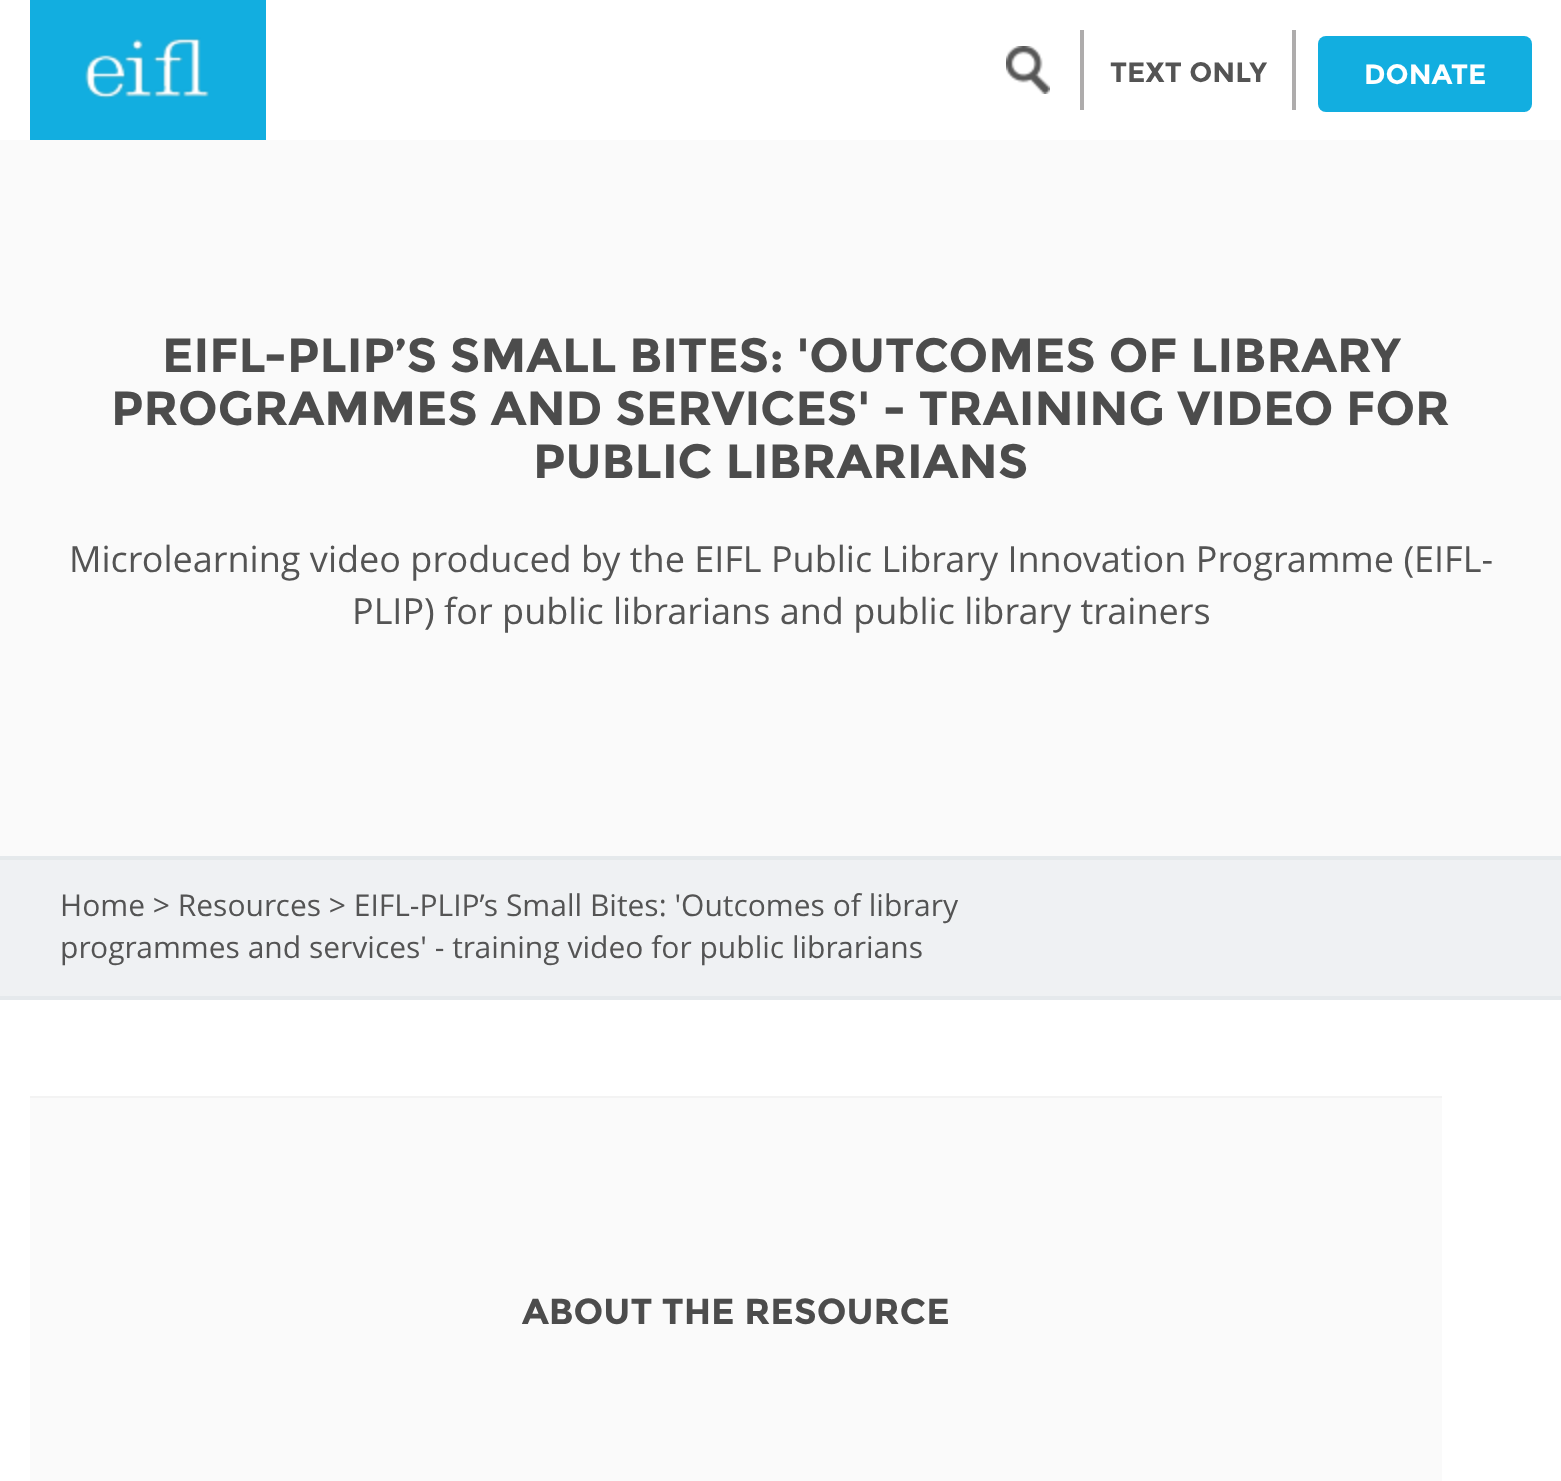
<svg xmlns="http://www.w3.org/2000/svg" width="1561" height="1481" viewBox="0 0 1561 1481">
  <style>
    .t1 { font: bold 28px Montserrat; fill: #545454; }
    .t2 { font: bold 28px Montserrat; fill: #fff; }
    .t3 { font: bold 48px Montserrat; fill: #4c4c4c; }
    .t4 { font: 36px Open Sans; fill: #545454; }
    .t5 { font: 30px Open Sans; fill: #545454; }
    .t6 { font: bold 36px Montserrat; fill: #4c4c4c; }
  </style>
  <rect width="100%" height="100%" fill="#fff"/>
  <image x="30" y="0" width="236" height="140" href="images/1.png"/>
  <image x="1006" y="46" width="44" height="48" href="images/2.png"/>
  <rect x="1080" y="30" width="4" height="80" fill="#aeacac"/>
  <text x="1110" y="82" class="t1">TEXT ONLY</text>
  <rect x="1292" y="30" width="4" height="80" fill="#aeacac"/>
  <rect x="1318" y="36" width="214" height="76" rx="8" fill="#12aee0"/>
  <text x="1364" y="84" class="t2">DONATE</text>
  <rect x="0" y="140" width="1561" height="716" fill="#fafafa"/>
  <text x="162" y="372" class="t3">EIFL-PLIP’S SMALL BITES: 'OUTCOMES OF LIBRARY</text>
  <text x="111" y="425" class="t3">PROGRAMMES AND SERVICES' - TRAINING VIDEO FOR</text>
  <text x="533" y="478" class="t3">PUBLIC LIBRARIANS</text>
  <text x="69" y="572" class="t4">Microlearning video produced by the EIFL Public Library Innovation Programme (EIFL-</text>
  <text x="352" y="624" class="t4">PLIP) for public librarians and public library trainers</text>
  <rect x="0" y="996" width="1561" height="4" fill="#e5e9ec"/>
  <rect x="0" y="860" width="1561" height="136" fill="#eff1f3"/>
  <rect x="0" y="858" width="1561" height="2" fill="#e5e9eb"/>
  <rect x="0" y="856" width="1561" height="2" fill="#e5e9ec"/>
  <text x="60" y="916" class="t5">Home &gt; Resources &gt; EIFL-PLIP’s Small Bites: 'Outcomes of library</text>
  <text x="60" y="958" class="t5">programmes and services' - training video for public librarians</text>
  <rect x="30" y="1098" width="1412" height="383" fill="#fafafa"/>
  <rect x="30" y="1096" width="1412" height="2" fill="#f3f3f3"/>
  <text x="522" y="1324" class="t6">ABOUT THE RESOURCE</text>
</svg>
